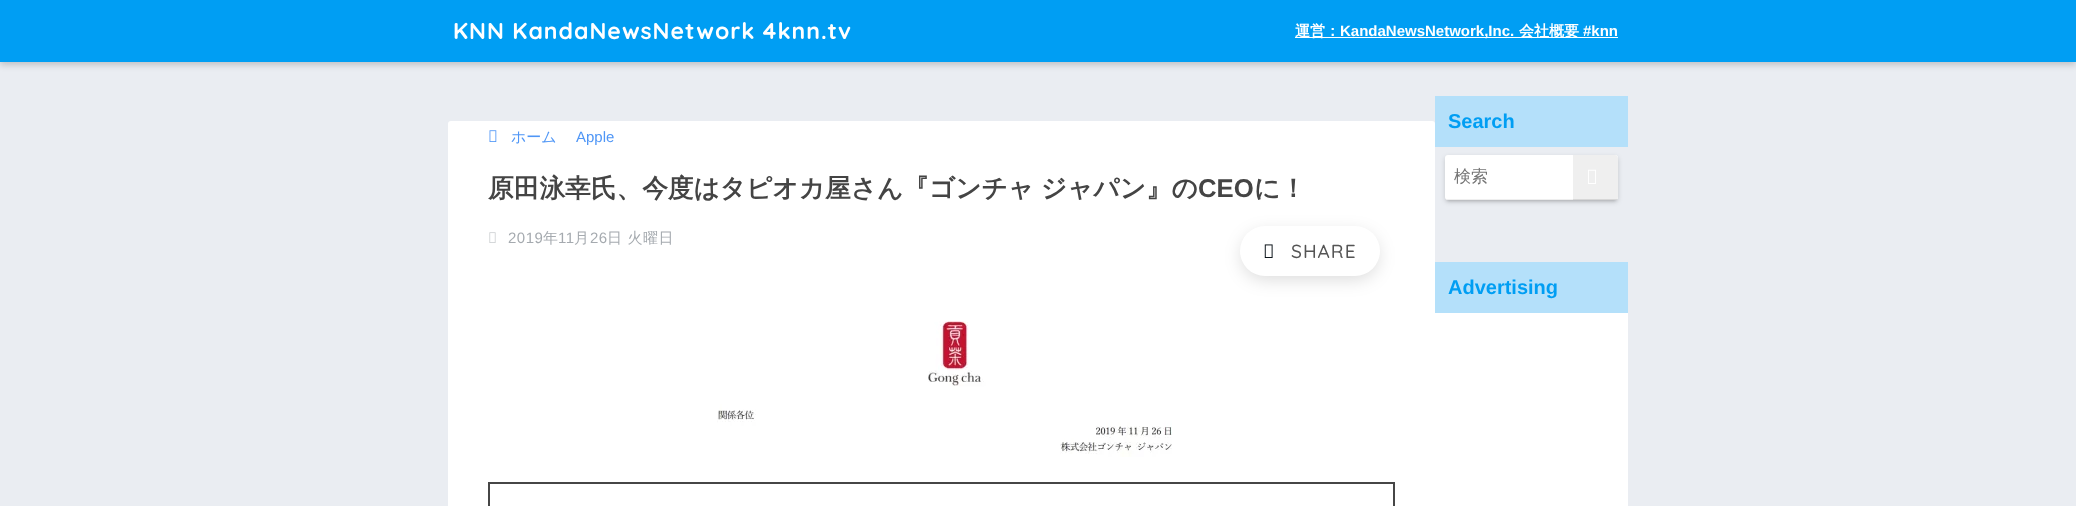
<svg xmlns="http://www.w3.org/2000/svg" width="2076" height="506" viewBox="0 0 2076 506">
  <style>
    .t1 { font: bold 23px Quicksand; letter-spacing: 1px; fill: #fff; }
    .t2 { font: bold 15px WenQuanYi Zen Hei; fill: #fff; }
    .t3 { font: bold 15px Liberation Sans; fill: #fff; }
    .t4 { font: 500 15px WenQuanYi Zen Hei; fill: #4f96f6; }
    .t5 { font: 15px Liberation Sans; fill: #4f96f6; }
    .t6 { font: bold 25.7px WenQuanYi Zen Hei; fill: #444; }
    .t7 { font: bold 25.7px Liberation Sans; fill: #444; }
    .t8 { font: 15px Liberation Sans; letter-spacing: 0.5px; fill: #a5aaaf; }
    .t9 { font: 500 15px WenQuanYi Zen Hei; letter-spacing: 0.5px; fill: #a5aaaf; }
    .t10 { font: 500 19px Quicksand; letter-spacing: 1px; fill: #555; }
    .t11 { font: bold 20px Liberation Sans; fill: #009ef3; }
    .t12 { font: 500 17px WenQuanYi Zen Hei; fill: #757575; }
  </style>
  <rect width="100%" height="100%" fill="#eaedf2"/>
  <rect x="0" y="3" width="2076" height="62" fill="#0000002e" filter="blur(3px)"/>
  <rect x="0" y="0" width="2076" height="62" fill="#009ef3"/>
  <text x="453" y="39" class="t1">KNN KandaNewsNetwork 4knn.tv</text>
  <rect x="1295" y="37" width="323" height="1" fill="#fff"/>
  <text x="1295" y="36" class="t2">運営：</text>
  <text x="1340" y="36" class="t3">KandaNewsNetwork,Inc.</text>
  <text x="1519" y="36" class="t2">会社概要</text>
  <text x="1583" y="36" class="t3">#knn</text>
  <rect x="448" y="121" width="987" height="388" rx="3" fill="#fff"/>
  <image x="489" y="130" width="8" height="12" href="images/1.png"/>
  <text x="511" y="142" class="t4">ホーム</text>
  <text x="576" y="142" class="t5">Apple</text>
  <text x="488" y="197" word-spacing="-1" class="t6">原田泳幸氏、今度はタピオカ屋さん『ゴンチャ ジャパン』の</text>
  <text x="1198" y="197" class="t7">CEO</text>
  <text x="1254" y="197" class="t6">に！</text>
  <image x="489" y="232" width="7" height="11" href="images/2.png"/>
  <text x="508" y="243" class="t8">2019</text>
  <text x="543" y="243" class="t9">年</text>
  <text x="558" y="243" class="t8">11</text>
  <text x="574" y="243" class="t9">月</text>
  <text x="590" y="243" class="t8">26</text>
  <text x="607" y="243" class="t9">日 火曜日</text>
  <rect x="1242" y="233" width="136" height="46" rx="23" fill="#00000026" filter="blur(9px)"/>
  <rect x="1240" y="226" width="140" height="50" rx="25" fill="#fff"/>
  <image x="1264" y="244" width="9" height="14" href="images/3.png"/>
  <text x="1291" y="258" class="t10">SHARE</text>
  <image x="717" y="321" width="455" height="136" href="images/4.png"/>
  <rect x="489" y="483" width="905" height="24" fill="none" stroke="#464646" stroke-width="2"/>
  <rect x="1435" y="96" width="193" height="51" fill="#b4e0fa"/>
  <text x="1448" y="128" class="t11">Search</text>
  <rect x="1447" y="160" width="169" height="41" rx="1" fill="#00000026" filter="blur(1.5px)"/>
  <rect x="1445" y="157" width="173" height="45" rx="3" fill="#00000026" filter="blur(2.5px)"/>
  <rect x="1445" y="155" width="173" height="45" rx="3" fill="#fff"/>
  <rect x="1447" y="199" width="126" height="1" fill="#efefef"/>
  <text x="1454" y="182" class="t12">検索</text>
  <path d="M1573 155H1615C1616.5 155 1618 156.5 1618 158V197C1618 198.5 1616.5 200 1615 200H1573Z" fill="#efefef"/>
  <rect x="1573" y="199" width="44" height="1" fill="#d7d7d7"/>
  <image x="1588" y="169" width="8" height="15" href="images/5.png"/>
  <rect x="1435" y="313" width="193" height="193" fill="#fff"/>
  <rect x="1435" y="262" width="193" height="51" fill="#b4e0fa"/>
  <text x="1448" y="294" class="t11">Advertising</text>
</svg>
